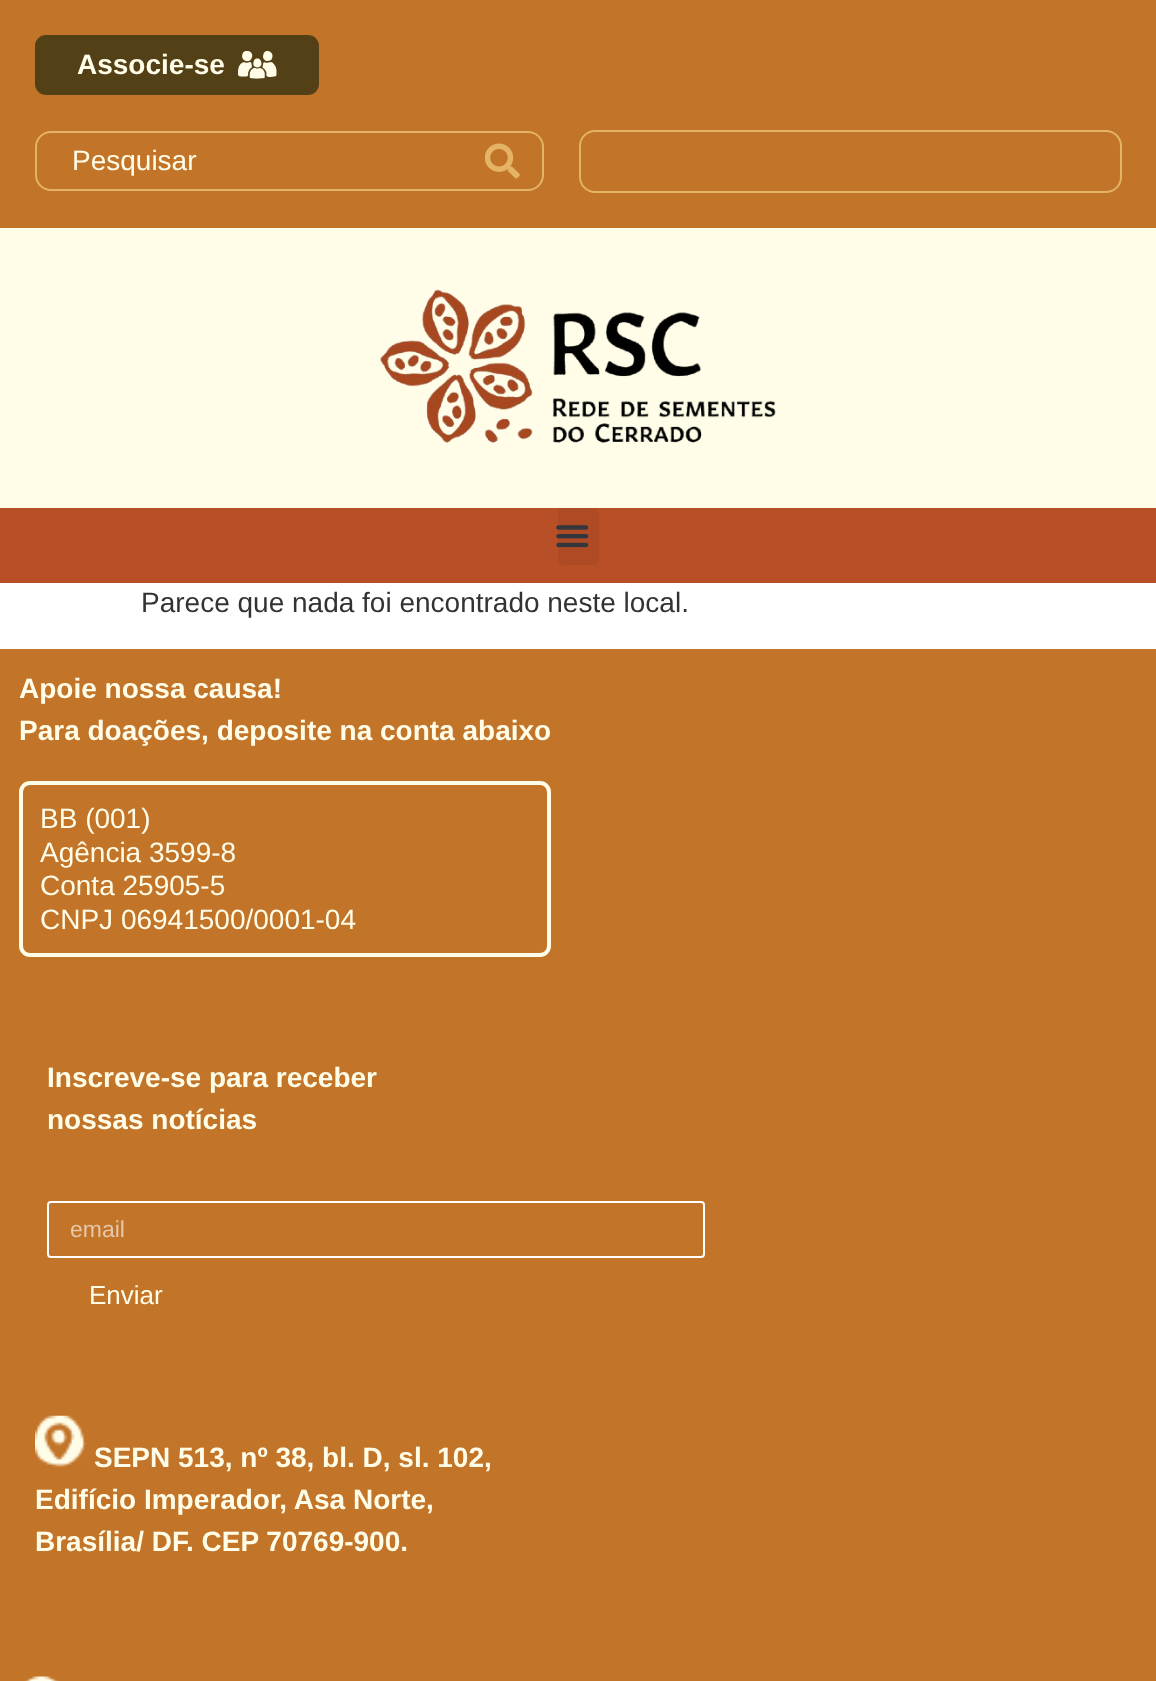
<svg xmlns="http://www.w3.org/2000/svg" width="1156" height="1681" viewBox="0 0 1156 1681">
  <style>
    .t1 { font: bold 28px Liberation Sans; fill: #fffde8; }
    .t2 { font: 28px Liberation Sans; fill: #fffde8; }
    .t3 { font: 28px Liberation Sans; fill: #333; }
    .t4 { font: 23px Liberation Sans; fill: #e7c7a9; }
    .t5 { font: 26px Liberation Sans; fill: #fffde8; }
  </style>
  <rect width="100%" height="100%" fill="#fff"/>
  <rect x="0" y="0" width="1156" height="228" fill="#c27429"/>
  <rect x="35" y="35" width="284" height="60" rx="11" fill="#544017"/>
  <text x="77" y="74" class="t1">Associe-se</text>
  <image x="238" y="51" width="39" height="28" href="images/1.png"/>
  <rect x="36" y="132" width="507" height="58" rx="15" fill="none" stroke="#e4b365" stroke-width="2"/>
  <text x="72" y="170" class="t2">Pesquisar</text>
  <image x="485" y="143" width="35" height="36" href="images/2.png"/>
  <rect x="580" y="131" width="541" height="61" rx="15" fill="none" stroke="#e4b365" stroke-width="2"/>
  <rect x="0" y="228" width="1156" height="280" fill="#fffde8"/>
  <image x="380" y="289" width="396" height="154" href="images/3.png"/>
  <rect x="0" y="508" width="1156" height="75" fill="#b84f26"/>
  <rect x="558" y="508" width="41" height="57" rx="5" fill="#af4b24"/>
  <image x="556" y="525" width="33" height="23" href="images/4.png"/>
  <text x="141" y="612" class="t3">Parece que nada foi encontrado neste local.</text>
  <rect x="0" y="649" width="1156" height="1032" fill="#c27429"/>
  <text x="19" y="698" class="t1">Apoie nossa causa!</text>
  <text x="19" y="740" class="t1">Para doações, deposite na conta abaixo</text>
  <rect x="21" y="783" width="528" height="172" rx="9" fill="none" stroke="#fffde8" stroke-width="4"/>
  <text x="40" y="828" class="t2">BB (001)</text>
  <text x="40" y="862" class="t2">Agência 3599-8</text>
  <text x="40" y="895" class="t2">Conta 25905-5</text>
  <text x="40" y="929" class="t2">CNPJ 06941500/0001-04</text>
  <text x="47" y="1087" class="t1">Inscreve-se para receber</text>
  <text x="47" y="1129" class="t1">nossas notícias</text>
  <rect x="48" y="1202" width="656" height="55" rx="3" fill="none" stroke="#fff" stroke-width="2"/>
  <text x="70" y="1237" class="t4">email</text>
  <text x="89" y="1304" class="t5">Enviar</text>
  <image x="35" y="1415" width="51" height="52" href="images/5.png"/>
  <text x="94" y="1467" class="t1">SEPN 513, nº 38, bl. D, sl. 102,</text>
  <text x="35" y="1509" class="t1">Edifício Imperador, Asa Norte,</text>
  <text x="35" y="1551" class="t1">Brasília/ DF. CEP 70769-900.</text>
  <image x="24" y="1676" width="35" height="5" href="images/6.png"/>
</svg>
